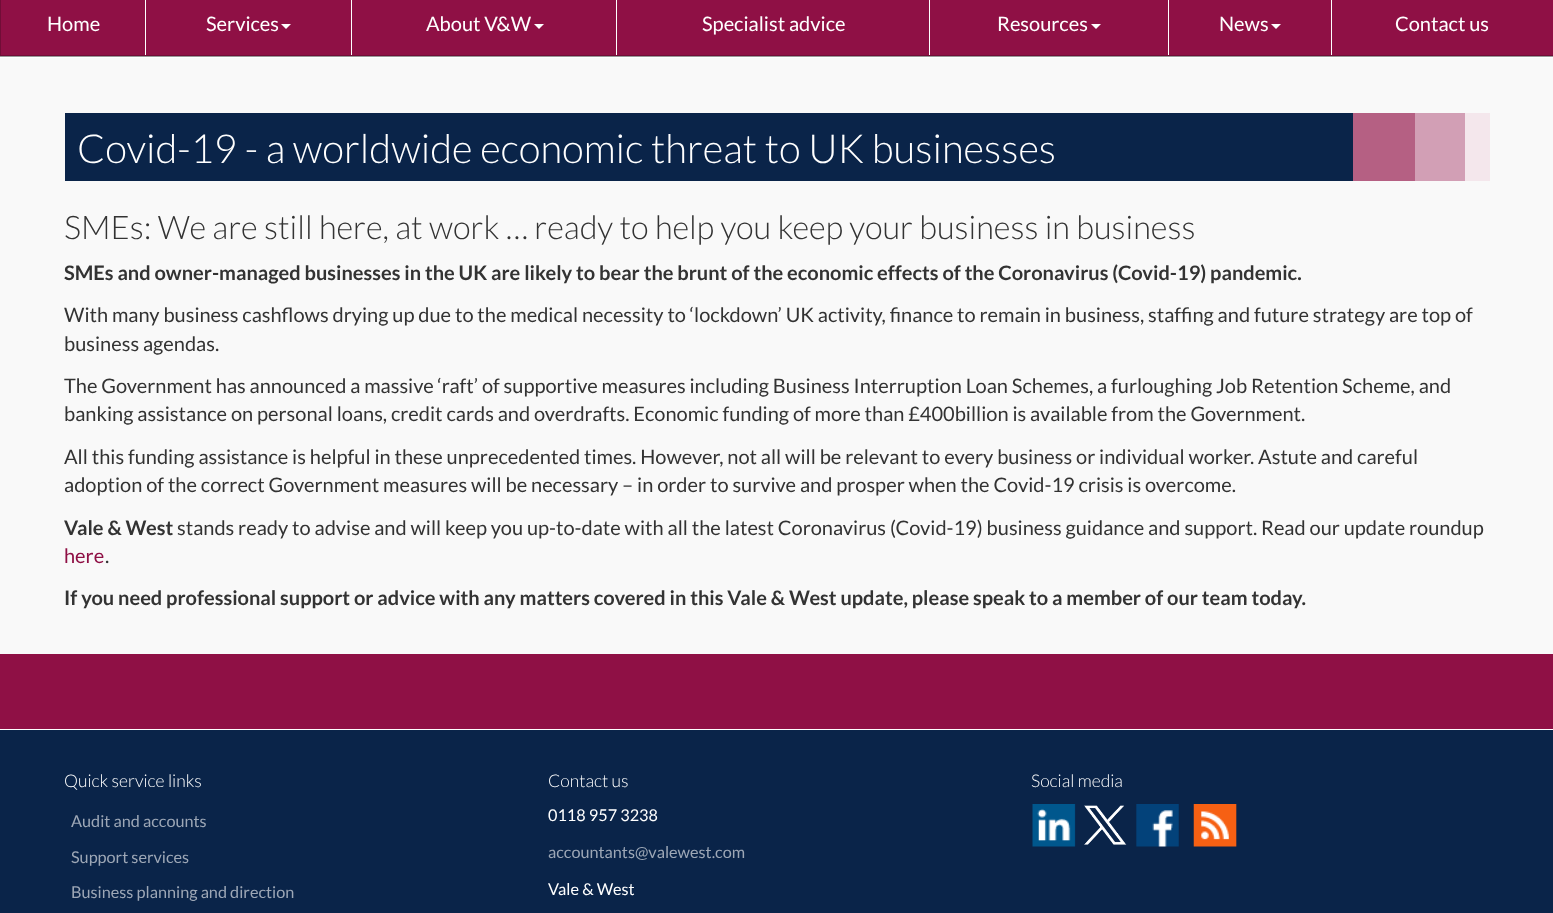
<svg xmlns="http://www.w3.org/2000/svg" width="1553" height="913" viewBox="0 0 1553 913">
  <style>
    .t1 { font: 20px Lato; fill: #fff; }
    .t2 { font: 300 40px Lato; fill: #fff; }
    .t3 { font: 300 32.5px Lato; fill: #333; }
    .t4 { font: bold 20px Lato; fill: #333; }
    .t5 { font: 20px Lato; fill: #333; }
    .t6 { font: 20px Lato; fill: #8f1045; }
    .t7 { font: 300 17.5px Lato; fill: #fff; }
    .t8 { font: 16.25px Lato; fill: #9da7b6; }
    .t9 { font: 16.25px Lato; fill: #fff; }
  </style>
  <rect width="100%" height="100%" fill="#fff"/>
  <rect x="0" y="56" width="1553" height="1" fill="#999"/>
  <rect x="0.5" y="-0.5" width="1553" height="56" fill="#8f1045" stroke="#710d37"/>
  <text x="47" y="31" class="t1">Home</text>
  <rect x="145" y="0" width="1" height="55" fill="#fff"/>
  <text x="206" y="31" class="t1">Services</text>
  <path d="M281 24H291L286 29Z" fill="#fff"/>
  <rect x="351" y="0" width="1" height="55" fill="#fff"/>
  <text x="426" y="31" class="t1">About V&amp;W</text>
  <path d="M534 24H544L539 29Z" fill="#fff"/>
  <rect x="616" y="0" width="1" height="55" fill="#fff"/>
  <text x="702" y="31" class="t1">Specialist advice</text>
  <rect x="929" y="0" width="1" height="55" fill="#fff"/>
  <text x="997" y="31" class="t1">Resources</text>
  <path d="M1091 24H1101L1096 29Z" fill="#fff"/>
  <rect x="1168" y="0" width="1" height="55" fill="#fff"/>
  <text x="1219" y="31" class="t1">News</text>
  <path d="M1271 24H1281L1276 29Z" fill="#fff"/>
  <rect x="1331" y="0" width="1" height="55" fill="#fff"/>
  <text x="1395" y="31" class="t1">Contact us</text>
  <rect x="0" y="58" width="1553" height="596" fill="#f9f9f9"/>
  <rect x="65" y="113" width="1288" height="68" fill="#0a2449"/>
  <rect x="1465" y="113" width="25" height="68" fill="#f4e7ec"/>
  <text x="77" y="163" class="t2">Covid-19 - a worldwide economic threat to UK businesses</text>
  <rect x="1353" y="113" width="62" height="68" fill="#b56083"/>
  <rect x="1415" y="113" width="50" height="68" fill="#d29fb5"/>
  <text x="64" y="239" class="t3">SMEs: We are still here, at work … ready to help you keep your business in business</text>
  <text x="64" y="280" class="t4">SMEs and owner-managed businesses in the UK are likely to bear the brunt of the economic effects of the Coronavirus (Covid-19) pandemic.</text>
  <text x="64" y="322" class="t5">With many business cashflows drying up due to the medical necessity to ‘lockdown’ UK activity, finance to remain in business, staffing and future strategy are top of</text>
  <text x="64" y="351" class="t5">business agendas.</text>
  <text x="64" y="393" class="t5">The Government has announced a massive ‘raft’ of supportive measures including Business Interruption Loan Schemes, a furloughing Job Retention Scheme, and</text>
  <text x="64" y="421" class="t5">banking assistance on personal loans, credit cards and overdrafts. Economic funding of more than £400billion is available from the Government.</text>
  <text x="64" y="464" class="t5">All this funding assistance is helpful in these unprecedented times. However, not all will be relevant to every business or individual worker. Astute and careful</text>
  <text x="64" y="492" class="t5">adoption of the correct Government measures will be necessary – in order to survive and prosper when the Covid-19 crisis is overcome.</text>
  <text x="64" y="535" class="t4">Vale &amp; West</text>
  <text x="177" y="535" class="t5">stands ready to advise and will keep you up-to-date with all the latest Coronavirus (Covid-19) business guidance and support. Read our update roundup</text>
  <text x="64" y="563" class="t6">here</text>
  <text x="105" y="563" class="t5">.</text>
  <text x="64" y="605" class="t4">If you need professional support or advice with any matters covered in this Vale &amp; West update, please speak to a member of our team today.</text>
  <rect x="0" y="730" width="1553" height="183" fill="#0a2449"/>
  <rect x="0" y="654" width="1553" height="75" fill="#8f1045"/>
  <text x="64" y="787" class="t7">Quick service links</text>
  <text x="71" y="827" class="t8">Audit and accounts</text>
  <text x="71" y="863" class="t8">Support services</text>
  <text x="71" y="898" class="t8">Business planning and direction</text>
  <text x="548" y="787" class="t7">Contact us</text>
  <text x="548" y="821" class="t9">0118 957 3238</text>
  <text x="548" y="858" class="t8">accountants@valewest.com</text>
  <text x="548" y="895" class="t9">Vale &amp; West</text>
  <text x="1031" y="787" class="t7">Social media</text>
  <image x="1032" y="804" width="44" height="43" href="images/1.png"/>
  <image x="1084" y="805" width="43" height="40" href="images/2.png"/>
  <image x="1136" y="804" width="43" height="43" href="images/3.png"/>
  <image x="1193" y="804" width="44" height="43" href="images/4.png"/>
</svg>
